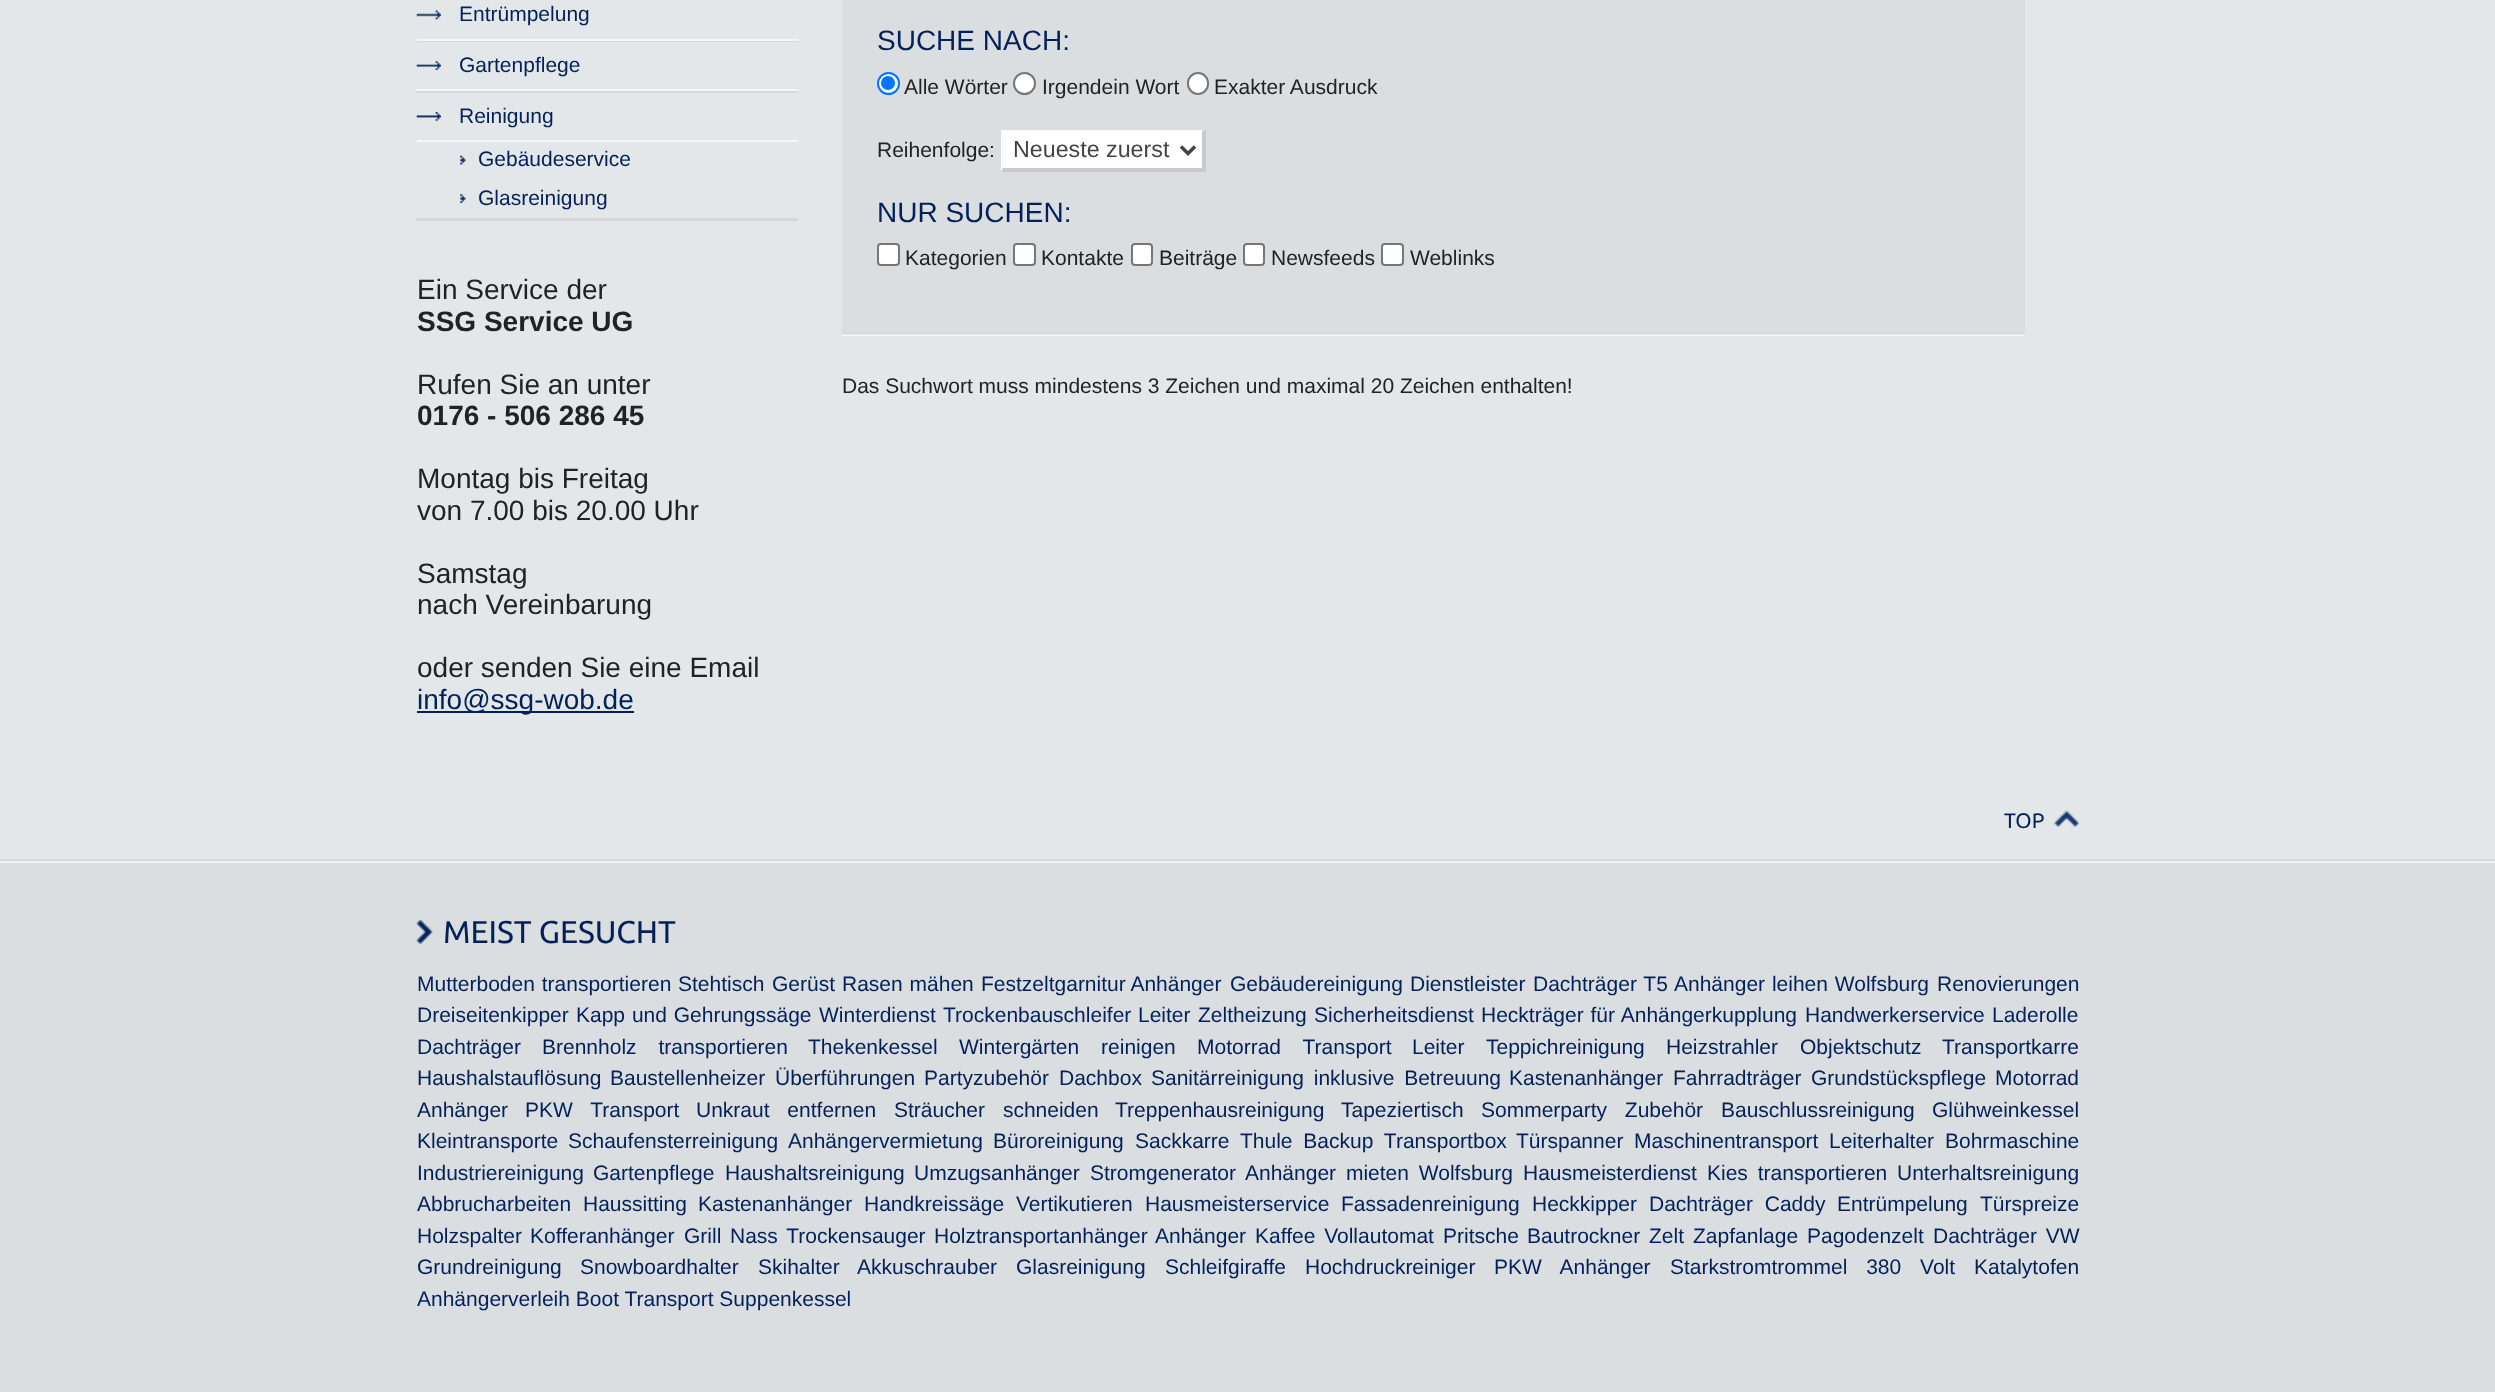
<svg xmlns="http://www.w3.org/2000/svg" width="2495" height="1392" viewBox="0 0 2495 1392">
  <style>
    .t1 { font: 21px Liberation Sans; fill: #032158; }
    .t2 { font: 28px Liberation Sans; fill: #222; }
    .t3 { font: bold 28px Liberation Sans; fill: #222; }
    .t4 { font: 28px Liberation Sans; fill: #032158; }
    .t5 { font: 21px Liberation Sans; fill: #222; }
    .t6 { font: 23.25px Liberation Sans; fill: #444; }
    .t7 { font: 21px Ubuntu; fill: #032158; }
    .t8 { font: 31.5px Ubuntu; fill: #032158; }
  </style>
  <rect width="100%" height="100%" fill="#e4e7e9"/>
  <image x="0" y="859" width="2495" height="4" href="images/1.png"/>
  <image x="416" y="40" width="382" height="2" href="images/2.png"/>
  <image x="416" y="10" width="25" height="10" href="images/3.png"/>
  <rect x="417" y="39" width="381" height="2" fill="#f6f6f6"/>
  <text x="459" y="21" class="t1">Entrümpelung</text>
  <image x="416" y="91" width="382" height="2" href="images/4.png"/>
  <image x="416" y="61" width="25" height="9" href="images/5.png"/>
  <rect x="417" y="89" width="381" height="2" fill="#f6f6f6"/>
  <text x="459" y="72" class="t1">Gartenpflege</text>
  <rect x="416" y="218" width="382" height="3" fill="#d7d6d6"/>
  <image x="416" y="112" width="25" height="9" href="images/6.png"/>
  <rect x="417" y="140" width="381" height="2" fill="#f6f6f6"/>
  <text x="459" y="123" class="t1">Reinigung</text>
  <image x="460" y="155" width="6" height="10" href="images/7.png"/>
  <text x="478" y="166" class="t1">Gebäudeservice</text>
  <image x="460" y="194" width="6" height="9" href="images/8.png"/>
  <text x="478" y="205" class="t1">Glasreinigung</text>
  <text x="417" y="299" class="t2">Ein Service der</text>
  <text x="417" y="331" class="t3">SSG Service UG</text>
  <text x="417" y="394" class="t2">Rufen Sie an unter</text>
  <text x="417" y="425" class="t3">0176 - 506 286 45</text>
  <text x="417" y="488" class="t2">Montag bis Freitag</text>
  <text x="417" y="520" class="t2">von 7.00 bis 20.00 Uhr</text>
  <text x="417" y="583" class="t2">Samstag</text>
  <text x="417" y="614" class="t2">nach Vereinbarung</text>
  <text x="417" y="677" class="t2">oder senden Sie eine Email</text>
  <rect x="417" y="711" width="217" height="2" fill="#032158"/>
  <text x="417" y="709" class="t4">info@ssg-wob.de</text>
  <rect x="842" y="0" width="1183" height="336" fill="#dbdee0"/>
  <image x="841" y="332" width="1184" height="4" href="images/9.png"/>
  <text x="877" y="50" class="t4">SUCHE NACH:</text>
  <circle cx="888.5" cy="83.5" r="10.5" fill="#fff" stroke="#0075ff" stroke-width="2"/>
  <circle cx="888" cy="83" r="7" fill="#0075ff"/>
  <text x="904" y="94" class="t5">Alle Wörter</text>
  <circle cx="1024.5" cy="83.5" r="10.5" fill="#fff" stroke="#767676" stroke-width="2"/>
  <text x="1042" y="94" class="t5">Irgendein Wort</text>
  <rect x="1188" y="73" width="20" height="21" rx="10" fill="#fff" stroke="#767676" stroke-width="2"/>
  <text x="1214" y="94" class="t5">Exakter Ausdruck</text>
  <text x="877" y="157" class="t5">Reihenfolge:</text>
  <rect x="1003" y="131" width="199" height="37" fill="#fff"/>
  <path d="M1001 130H1206L1202 131H1003Z" fill="#fafafa"/>
  <path d="M1206 130V172L1202 168V131Z" fill="#c8c9cc"/>
  <path d="M1206 172H1001L1003 168H1202Z" fill="#c8c9cc"/>
  <path d="M1001 172V130L1003 131V168Z" fill="#fafafa"/>
  <path d="M1181 146.5L1188 153.5L1195 146.5" fill="none" stroke="#444" stroke-width="3.5"/>
  <text x="1013" y="157" class="t6">Neueste zuerst</text>
  <text x="877" y="222" class="t4">NUR SUCHEN:</text>
  <rect x="878" y="244" width="21" height="21" rx="3" fill="#fff" stroke="#767676" stroke-width="2"/>
  <text x="905" y="265" class="t5">Kategorien</text>
  <rect x="1014" y="244" width="21" height="21" rx="3" fill="#fff" stroke="#767676" stroke-width="2"/>
  <text x="1041" y="265" class="t5">Kontakte</text>
  <rect x="1132" y="244" width="20" height="21" rx="3" fill="#fff" stroke="#767676" stroke-width="2"/>
  <text x="1159" y="265" class="t5">Beiträge</text>
  <rect x="1244" y="244" width="20" height="21" rx="3" fill="#fff" stroke="#767676" stroke-width="2"/>
  <text x="1271" y="265" class="t5">Newsfeeds</text>
  <rect x="1382" y="244" width="21" height="21" rx="3" fill="#fff" stroke="#767676" stroke-width="2"/>
  <text x="1410" y="265" class="t5">Weblinks</text>
  <text x="842" y="393" class="t5">Das Suchwort muss mindestens 3 Zeichen und maximal 20 Zeichen enthalten!</text>
  <text x="2004" y="828" class="t7">TOP</text>
  <image x="2054" y="810" width="25" height="18" href="images/10.png"/>
  <rect x="0" y="863" width="2495" height="529" fill="#dbdee0"/>
  <image x="416" y="919" width="17" height="26" href="images/11.png"/>
  <text x="443" y="943" class="t8">MEIST GESUCHT</text>
  <text x="417" y="991" word-spacing="1" class="t1">Mutterboden transportieren</text>
  <text x="678" y="991" class="t1">Stehtisch</text>
  <text x="772" y="991" class="t1">Gerüst</text>
  <text x="842" y="991" word-spacing="1" class="t1">Rasen mähen</text>
  <text x="981" y="991" class="t1">Festzeltgarnitur Anhänger</text>
  <text x="1230" y="991" class="t1">Gebäudereinigung</text>
  <text x="1410" y="991" class="t1">Dienstleister</text>
  <text x="1533" y="991" word-spacing="1" class="t1">Dachträger T5</text>
  <text x="1674" y="991" word-spacing="1" class="t1">Anhänger leihen Wolfsburg</text>
  <text x="1937" y="991" class="t1">Renovierungen</text>
  <text x="417" y="1022" class="t1">Dreiseitenkipper</text>
  <text x="576" y="1022" word-spacing="1" class="t1">Kapp und Gehrungssäge</text>
  <text x="819" y="1022" class="t1">Winterdienst</text>
  <text x="943" y="1022" class="t1">Trockenbauschleifer</text>
  <text x="1138" y="1022" class="t1">Leiter</text>
  <text x="1198" y="1022" class="t1">Zeltheizung</text>
  <text x="1314" y="1022" class="t1">Sicherheitsdienst</text>
  <text x="1481" y="1022" word-spacing="1" class="t1">Heckträger für Anhängerkupplung</text>
  <text x="1805" y="1022" class="t1">Handwerkerservice</text>
  <text x="1992" y="1022" class="t1">Laderolle</text>
  <text x="417" y="1054" class="t1">Dachträger</text>
  <text x="542" y="1054" word-spacing="16" class="t1">Brennholz transportieren</text>
  <text x="808" y="1054" class="t1">Thekenkessel</text>
  <text x="959" y="1054" word-spacing="16" class="t1">Wintergärten reinigen</text>
  <text x="1197" y="1054" word-spacing="16" class="t1">Motorrad Transport</text>
  <text x="1412" y="1054" class="t1">Leiter</text>
  <text x="1486" y="1054" class="t1">Teppichreinigung</text>
  <text x="1666" y="1054" class="t1">Heizstrahler</text>
  <text x="1800" y="1054" class="t1">Objektschutz</text>
  <text x="1942" y="1054" class="t1">Transportkarre</text>
  <text x="417" y="1085" class="t1">Haushalstauflösung</text>
  <text x="610" y="1085" class="t1">Baustellenheizer</text>
  <text x="775" y="1085" class="t1">Überführungen</text>
  <text x="924" y="1085" class="t1">Partyzubehör</text>
  <text x="1059" y="1085" class="t1">Dachbox</text>
  <text x="1151" y="1085" word-spacing="4" class="t1">Sanitärreinigung inklusive Betreuung</text>
  <text x="1509" y="1085" class="t1">Kastenanhänger</text>
  <text x="1673" y="1085" class="t1">Fahrradträger</text>
  <text x="1811" y="1085" class="t1">Grundstückspflege</text>
  <text x="1995" y="1085" class="t1">Motorrad</text>
  <text x="417" y="1117" class="t1">Anhänger</text>
  <text x="525" y="1117" word-spacing="12" class="t1">PKW Transport</text>
  <text x="696" y="1117" word-spacing="12" class="t1">Unkraut entfernen</text>
  <text x="894" y="1117" word-spacing="12" class="t1">Sträucher schneiden</text>
  <text x="1115" y="1117" class="t1">Treppenhausreinigung</text>
  <text x="1341" y="1117" class="t1">Tapeziertisch</text>
  <text x="1481" y="1117" word-spacing="12" class="t1">Sommerparty Zubehör</text>
  <text x="1721" y="1117" class="t1">Bauschlussreinigung</text>
  <text x="1932" y="1117" class="t1">Glühweinkessel</text>
  <text x="417" y="1148" class="t1">Kleintransporte</text>
  <text x="568" y="1148" class="t1">Schaufensterreinigung</text>
  <text x="788" y="1148" class="t1">Anhängervermietung</text>
  <text x="993" y="1148" class="t1">Büroreinigung</text>
  <text x="1135" y="1148" class="t1">Sackkarre</text>
  <text x="1240" y="1148" word-spacing="5" class="t1">Thule Backup Transportbox</text>
  <text x="1516" y="1148" class="t1">Türspanner</text>
  <text x="1634" y="1148" class="t1">Maschinentransport</text>
  <text x="1829" y="1148" class="t1">Leiterhalter</text>
  <text x="1945" y="1148" class="t1">Bohrmaschine</text>
  <text x="417" y="1180" class="t1">Industriereinigung</text>
  <text x="593" y="1180" class="t1">Gartenpflege</text>
  <text x="725" y="1180" class="t1">Haushaltsreinigung</text>
  <text x="914" y="1180" class="t1">Umzugsanhänger</text>
  <text x="1090" y="1180" class="t1">Stromgenerator</text>
  <text x="1245" y="1180" word-spacing="4" class="t1">Anhänger mieten Wolfsburg</text>
  <text x="1523" y="1180" class="t1">Hausmeisterdienst</text>
  <text x="1707" y="1180" word-spacing="4" class="t1">Kies transportieren</text>
  <text x="1897" y="1180" class="t1">Unterhaltsreinigung</text>
  <text x="417" y="1211" class="t1">Abbrucharbeiten</text>
  <text x="583" y="1211" class="t1">Haussitting</text>
  <text x="698" y="1211" class="t1">Kastenanhänger</text>
  <text x="864" y="1211" class="t1">Handkreissäge</text>
  <text x="1016" y="1211" class="t1">Vertikutieren</text>
  <text x="1145" y="1211" class="t1">Hausmeisterservice</text>
  <text x="1341" y="1211" class="t1">Fassadenreinigung</text>
  <text x="1532" y="1211" class="t1">Heckkipper</text>
  <text x="1649" y="1211" word-spacing="6" class="t1">Dachträger Caddy</text>
  <text x="1837" y="1211" class="t1">Entrümpelung</text>
  <text x="1980" y="1211" class="t1">Türspreize</text>
  <text x="417" y="1243" class="t1">Holzspalter</text>
  <text x="530" y="1243" class="t1">Kofferanhänger</text>
  <text x="684" y="1243" class="t1">Grill</text>
  <text x="730" y="1243" word-spacing="3" class="t1">Nass Trockensauger</text>
  <text x="934" y="1243" class="t1">Holztransportanhänger</text>
  <text x="1155" y="1243" class="t1">Anhänger</text>
  <text x="1255" y="1243" word-spacing="3" class="t1">Kaffee Vollautomat</text>
  <text x="1443" y="1243" class="t1">Pritsche</text>
  <text x="1527" y="1243" class="t1">Bautrockner</text>
  <text x="1649" y="1243" class="t1">Zelt</text>
  <text x="1693" y="1243" class="t1">Zapfanlage</text>
  <text x="1807" y="1243" class="t1">Pagodenzelt</text>
  <text x="1933" y="1243" word-spacing="3" class="t1">Dachträger VW</text>
  <text x="417" y="1274" class="t1">Grundreinigung</text>
  <text x="580" y="1274" class="t1">Snowboardhalter</text>
  <text x="758" y="1274" class="t1">Skihalter</text>
  <text x="857" y="1274" class="t1">Akkuschrauber</text>
  <text x="1016" y="1274" class="t1">Glasreinigung</text>
  <text x="1165" y="1274" class="t1">Schleifgiraffe</text>
  <text x="1305" y="1274" class="t1">Hochdruckreiniger</text>
  <text x="1494" y="1274" word-spacing="13" class="t1">PKW Anhänger</text>
  <text x="1670" y="1274" word-spacing="13" class="t1">Starkstromtrommel 380 Volt</text>
  <text x="1974" y="1274" class="t1">Katalytofen</text>
  <text x="417" y="1306" class="t1">Anhängerverleih Boot Transport Suppenkessel</text>
</svg>
